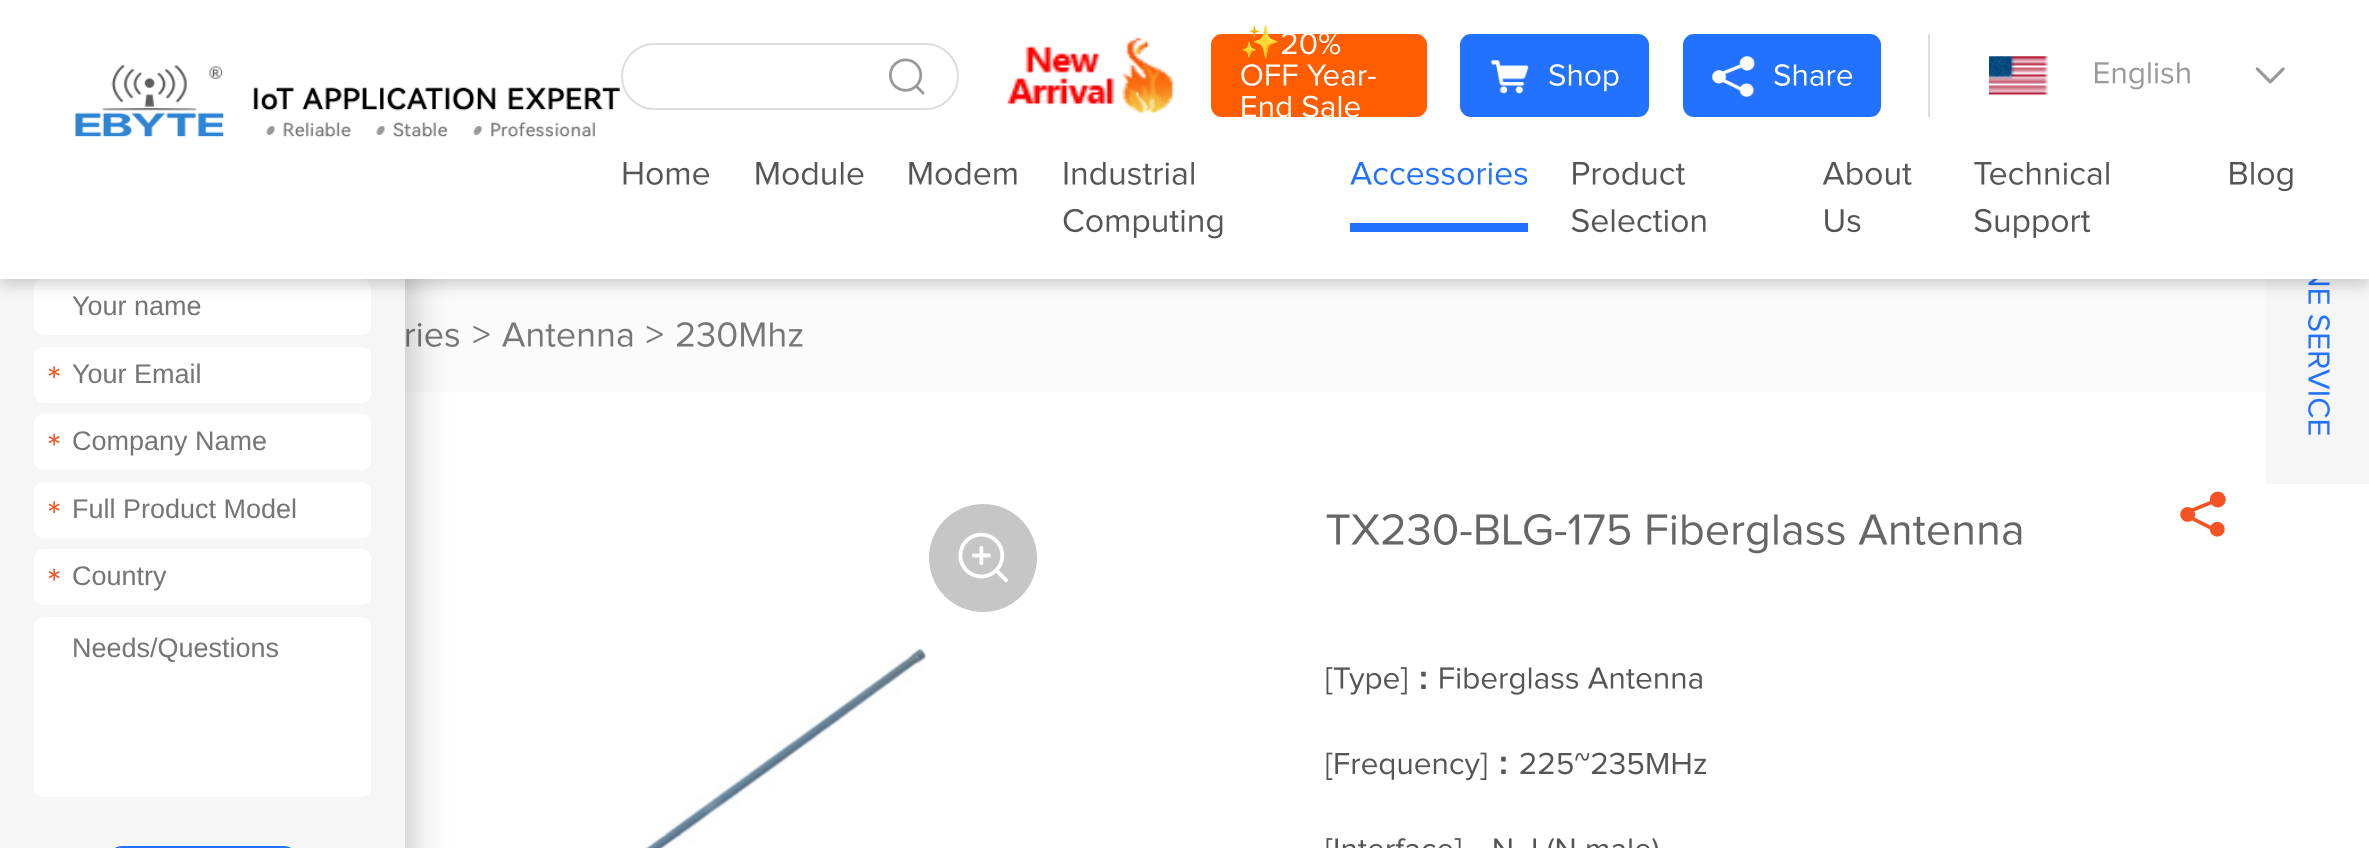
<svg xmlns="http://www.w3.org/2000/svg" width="2369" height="848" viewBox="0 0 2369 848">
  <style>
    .t1 { font: bold 32px Noto Color Emoji; fill: #fff; }
    .t2 { font: 27px Liberation Sans; fill: #757575; }
    .t3 { font: bold 32px WenQuanYi Zen Hei; fill: #555; }
  </style>
  <rect width="100%" height="100%" fill="#fff"/>
  <rect x="405" y="279" width="1861" height="113" fill="#fbfbfb"/>
  <image x="406" y="323" width="53" height="24" href="images/30.png"/>
  <image x="473" y="325" width="17" height="19" href="images/31.png"/>
  <rect x="0" y="144" width="405" height="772" fill="#0000004d" filter="blur(22.5px)"/>
  <rect x="0" y="279" width="405" height="569" fill="#f6f6f6"/>
  <rect x="34" y="279" width="337" height="56" rx="9" fill="#fff"/>
  <rect x="2266" y="279" width="103" height="205" fill="#f6f6f6"/>
  <image x="2308" y="279" width="22" height="156" href="images/29.png"/>
  <rect x="0" y="7" width="2369" height="279" fill="#00000029" filter="blur(7px)"/>
  <rect x="0" y="0" width="2369" height="279" fill="#fff"/>
  <rect x="622" y="44" width="336" height="65" rx="32.5" fill="none" stroke="#ddd" stroke-width="2"/>
  <image x="889" y="58" width="36" height="37" href="images/1.png"/>
  <rect x="1928" y="34" width="2" height="83" fill="#ddd"/>
  <image x="1007" y="37" width="166" height="77" href="images/2.png"/>
  <rect x="1212" y="35" width="214" height="81" rx="10" fill="#ff5d00" stroke="#ff5d00" stroke-width="2"/>
  <text x="1240" y="53" class="t1">✨</text>
  <image x="1281" y="34" width="60" height="21" href="images/3.png"/>
  <image x="1241" y="64" width="135" height="22" href="images/4.png"/>
  <image x="1242" y="95" width="118" height="22" href="images/5.png"/>
  <rect x="1461" y="35" width="187" height="81" rx="10" fill="#2371ff" stroke="#2371ff" stroke-width="2"/>
  <image x="1491" y="60" width="38" height="34" href="images/6.png"/>
  <image x="1549" y="64" width="70" height="28" href="images/7.png"/>
  <rect x="1684" y="35" width="196" height="81" rx="10" fill="#2371ff" stroke="#2371ff" stroke-width="2"/>
  <image x="1712" y="56" width="43" height="41" href="images/8.png"/>
  <image x="1774" y="64" width="79" height="22" href="images/9.png"/>
  <image x="1989" y="56" width="59" height="40" href="images/10.png"/>
  <image x="2094" y="62" width="96" height="28" href="images/11.png"/>
  <image x="2255" y="67" width="30" height="17" href="images/12.png"/>
  <image x="623" y="162" width="87" height="23" href="images/13.png"/>
  <image x="756" y="162" width="108" height="23" href="images/14.png"/>
  <image x="909" y="162" width="108" height="23" href="images/15.png"/>
  <image x="1064" y="162" width="130" height="23" href="images/16.png"/>
  <image x="1063" y="208" width="160" height="31" href="images/17.png"/>
  <image x="1350" y="162" width="178" height="23" href="images/18.png"/>
  <rect x="1350" y="223" width="178" height="9" fill="#2371ff"/>
  <image x="1573" y="162" width="113" height="23" href="images/19.png"/>
  <image x="1571" y="208" width="135" height="25" href="images/20.png"/>
  <image x="1822" y="162" width="90" height="23" href="images/21.png"/>
  <image x="1825" y="209" width="36" height="24" href="images/22.png"/>
  <image x="1974" y="162" width="135" height="23" href="images/23.png"/>
  <image x="1974" y="208" width="117" height="30" href="images/24.png"/>
  <image x="2230" y="162" width="63" height="30" href="images/25.png"/>
  <image x="75" y="65" width="545" height="73" href="images/26.png"/>
  <text x="72" y="315" class="t2">Your name</text>
  <rect x="34" y="347" width="337" height="56" rx="9" fill="#fff"/>
  <image x="48" y="366" width="12" height="12" href="images/27.png"/>
  <text x="72" y="383" class="t2">Your Email</text>
  <rect x="34" y="414" width="337" height="56" rx="9" fill="#fff"/>
  <image x="48" y="433" width="12" height="13" href="images/28.png"/>
  <text x="72" y="450" class="t2">Company Name</text>
  <rect x="34" y="482" width="337" height="56" rx="9" fill="#fff"/>
  <image x="48" y="501" width="12" height="12" href="images/27.png"/>
  <text x="72" y="518" class="t2">Full Product Model</text>
  <rect x="34" y="549" width="337" height="56" rx="9" fill="#fff"/>
  <image x="48" y="568" width="12" height="13" href="images/28.png"/>
  <text x="72" y="585" class="t2">Country</text>
  <rect x="34" y="617" width="337" height="180" rx="9" fill="#fff"/>
  <text x="72" y="657" class="t2">Needs/Questions</text>
  <rect x="113" y="846" width="180" height="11" rx="9" fill="#2371ff"/>
  <image x="502" y="322" width="131" height="25" href="images/32.png"/>
  <image x="646" y="325" width="17" height="19" href="images/33.png"/>
  <image x="676" y="322" width="127" height="25" href="images/34.png"/>
  <circle cx="983" cy="558" r="54" fill="#c6c6c6"/>
  <image x="958" y="532" width="50" height="51" href="images/35.png"/>
  <image x="645" y="648" width="282" height="200" href="images/36.png"/>
  <image x="1326" y="514" width="696" height="40" href="images/37.png"/>
  <image x="2180" y="491" width="46" height="46" href="images/38.png"/>
  <image x="1326" y="667" width="81" height="28" href="images/39.png"/>
  <text x="1407" y="689" class="t3">：</text>
  <image x="1440" y="667" width="262" height="28" href="images/40.png"/>
  <image x="1326" y="752" width="161" height="29" href="images/41.png"/>
  <text x="1487" y="774" class="t3">：</text>
  <image x="1520" y="752" width="186" height="23" href="images/42.png"/>
  <image x="1326" y="838" width="135" height="10" href="images/43.png"/>
  <image x="1494" y="838" width="164" height="10" href="images/44.png"/>
</svg>
